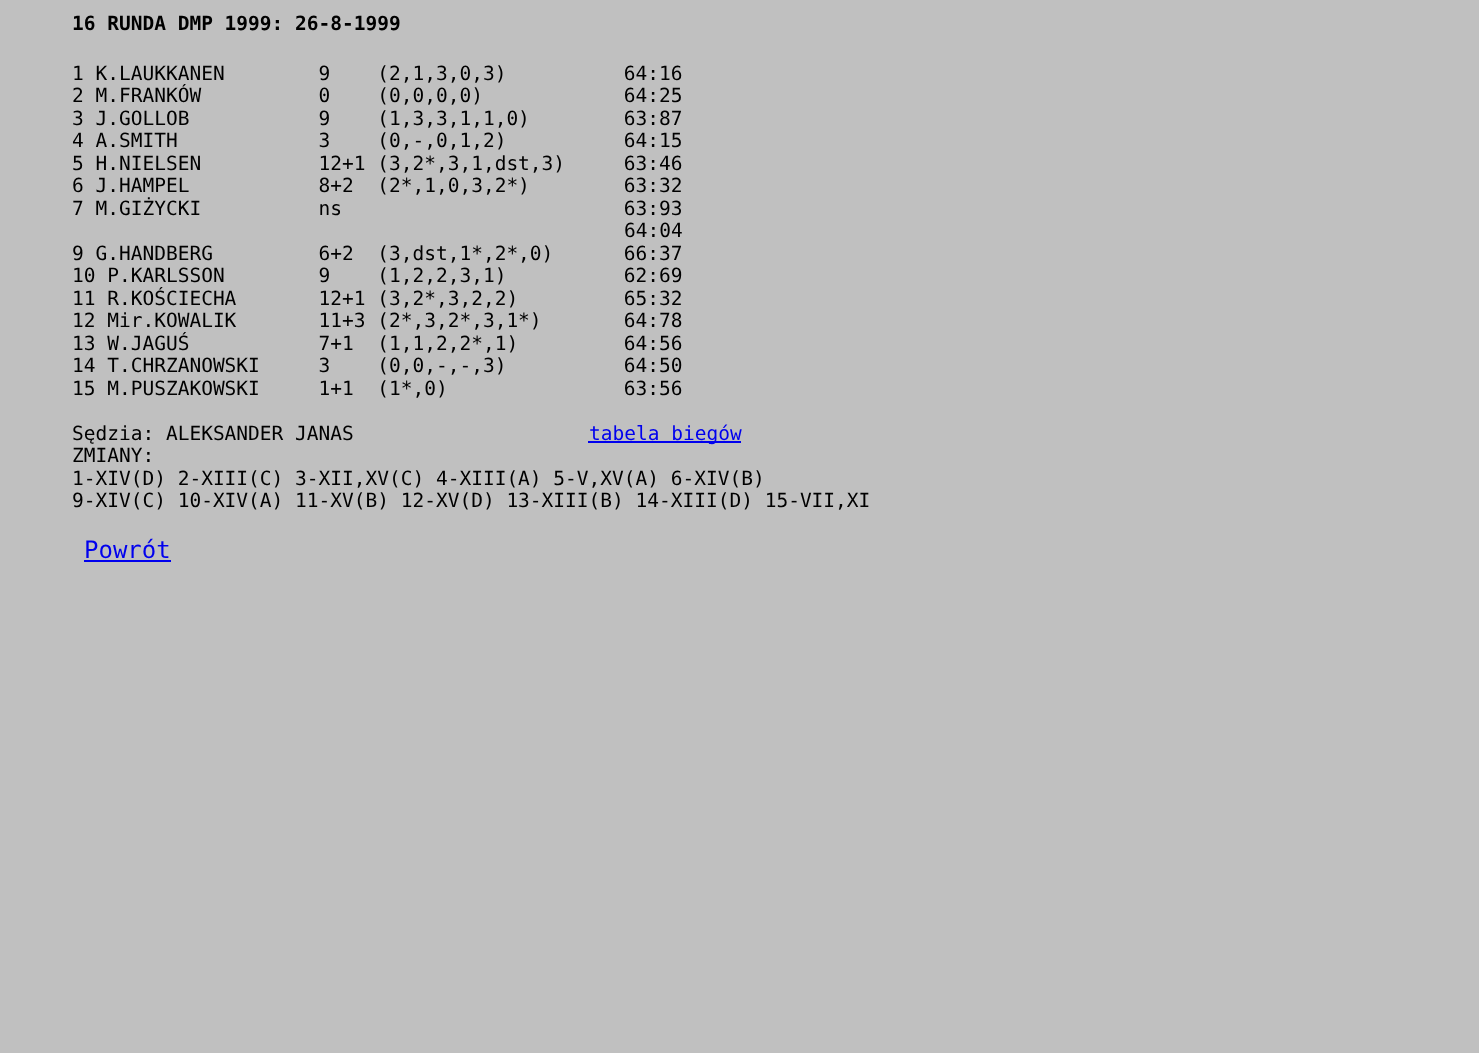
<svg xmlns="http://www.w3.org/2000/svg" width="1479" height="1053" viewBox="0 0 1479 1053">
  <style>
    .t1 { font: bold 19.5px DejaVu Sans Mono; fill: #000; }
    .t2 { font: 19.5px DejaVu Sans Mono; fill: #000; }
    .t3 { font: 19.5px DejaVu Sans Mono; fill: #00e; }
    .t4 { font: 24px DejaVu Sans Mono; fill: #00e; }
  </style>
  <rect width="100%" height="100%" fill="#c0c0c0"/>
  <text x="72" y="30" class="t1">16 RUNDA DMP 1999: 26-8-1999</text>
  <text x="72" y="80" class="t2" xml:space="preserve">1 K.LAUKKANEN        9    (2,1,3,0,3)          64:16</text>
  <text x="72" y="102" class="t2" xml:space="preserve">2 M.FRANKÓW          0    (0,0,0,0)            64:25</text>
  <text x="72" y="125" class="t2" xml:space="preserve">3 J.GOLLOB           9    (1,3,3,1,1,0)        63:87</text>
  <text x="72" y="147" class="t2" xml:space="preserve">4 A.SMITH            3    (0,-,0,1,2)          64:15</text>
  <text x="72" y="170" class="t2" xml:space="preserve">5 H.NIELSEN          12+1 (3,2*,3,1,dst,3)     63:46</text>
  <text x="72" y="192" class="t2" xml:space="preserve">6 J.HAMPEL           8+2  (2*,1,0,3,2*)        63:32</text>
  <text x="72" y="215" class="t2" xml:space="preserve">7 M.GIŻYCKI          ns                        63:93</text>
  <text x="624" y="237" class="t2">64:04</text>
  <text x="72" y="260" class="t2" xml:space="preserve">9 G.HANDBERG         6+2  (3,dst,1*,2*,0)      66:37</text>
  <text x="72" y="282" class="t2" xml:space="preserve">10 P.KARLSSON        9    (1,2,2,3,1)          62:69</text>
  <text x="72" y="305" class="t2" xml:space="preserve">11 R.KOŚCIECHA       12+1 (3,2*,3,2,2)         65:32</text>
  <text x="72" y="327" class="t2" xml:space="preserve">12 Mir.KOWALIK       11+3 (2*,3,2*,3,1*)       64:78</text>
  <text x="72" y="350" class="t2" xml:space="preserve">13 W.JAGUŚ           7+1  (1,1,2,2*,1)         64:56</text>
  <text x="72" y="372" class="t2" xml:space="preserve">14 T.CHRZANOWSKI     3    (0,0,-,-,3)          64:50</text>
  <text x="72" y="395" class="t2" xml:space="preserve">15 M.PUSZAKOWSKI     1+1  (1*,0)               63:56</text>
  <text x="72" y="440" class="t2">Sędzia: ALEKSANDER JANAS</text>
  <rect x="588" y="441" width="153" height="2" fill="#00e"/>
  <text x="589" y="440" class="t3">tabela biegów</text>
  <text x="72" y="462" class="t2">ZMIANY:</text>
  <text x="72" y="485" class="t2">1-XIV(D) 2-XIII(C) 3-XII,XV(C) 4-XIII(A) 5-V,XV(A) 6-XIV(B)</text>
  <text x="72" y="507" class="t2">9-XIV(C) 10-XIV(A) 11-XV(B) 12-XV(D) 13-XIII(B) 14-XIII(D) 15-VII,XI</text>
  <text x="84" y="558" class="t4">Powrót</text>
  <rect x="84" y="560" width="87" height="2" fill="#00e"/>
</svg>
